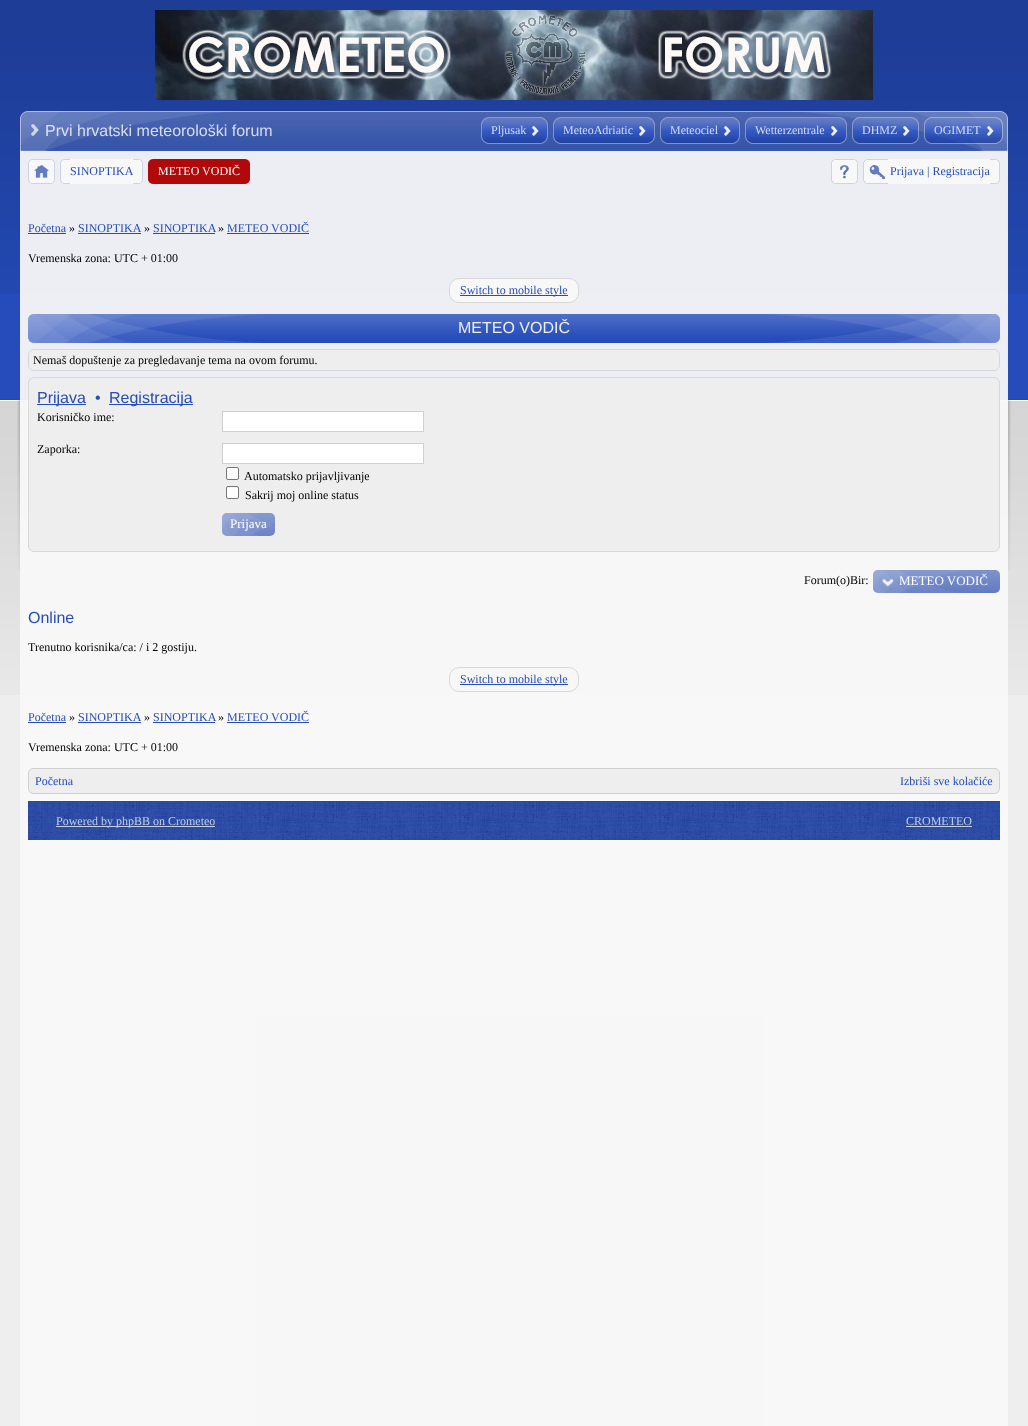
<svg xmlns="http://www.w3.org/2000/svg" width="1028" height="1426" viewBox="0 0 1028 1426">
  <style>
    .t1 { font: 16px Liberation Sans; fill: #d3d9ec; }
    .t2 { font: 12px Liberation Serif; fill: #d7def3; }
    .t3 { font: 12px Liberation Serif; fill: #254cba; }
    .t4 { font: 12px Liberation Serif; fill: #fff; }
    .t5 { font: 12px Liberation Serif; fill: #000; }
    .t6 { font: 16px Liberation Sans; fill: #ebeff9; }
    .t7 { font: 16px Liberation Sans; fill: #254cba; }
    .t8 { font: 13px Liberation Serif; fill: #fff; }
    .t9 { font: 12px Liberation Serif; fill: #c5cde3; }
  </style>
  <rect width="100%" height="100%" fill="#eee"/>
  <rect x="0" y="0" width="1028" height="399" fill="#254cba"/>
  <rect x="0" y="399" width="1028" height="1" fill="#2b489b"/>
  <image x="0" y="0" width="1028" height="294" href="images/1.png"/>
  <image x="0" y="0" width="1028" height="294" href="images/2.png"/>
  <image x="0" y="401" width="1028" height="294" href="images/3.png"/>
  <rect x="0" y="400" width="1028" height="1" fill="#fff"/>
  <image x="17" y="400" width="3" height="170" href="images/4.png"/>
  <image x="1008" y="400" width="3" height="170" href="images/5.png"/>
  <image x="155" y="10" width="718" height="90" href="images/6.png"/>
  <image x="260" y="111" width="508" height="40" href="images/7.png"/>
  <image x="31" y="124" width="8" height="12" href="images/10.png"/>
  <text x="45" y="136" class="t1">Prvi hrvatski meteorološki forum</text>
  <image x="20" y="111" width="240" height="40" href="images/8.png"/>
  <image x="768" y="111" width="240" height="40" href="images/9.png"/>
  <image x="491" y="117" width="37" height="27" href="images/11.png"/>
  <image x="481" y="117" width="10" height="27" href="images/12.png"/>
  <text x="491" y="134" class="t2">Pljusak</text>
  <image x="528" y="117" width="20" height="27" href="images/13.png"/>
  <image x="563" y="117" width="72" height="27" href="images/14.png"/>
  <image x="553" y="117" width="10" height="27" href="images/12.png"/>
  <text x="563" y="134" class="t2">MeteoAdriatic</text>
  <image x="635" y="117" width="20" height="27" href="images/13.png"/>
  <image x="670" y="117" width="50" height="27" href="images/15.png"/>
  <image x="660" y="117" width="10" height="27" href="images/12.png"/>
  <text x="670" y="134" class="t2">Meteociel</text>
  <image x="720" y="117" width="20" height="27" href="images/13.png"/>
  <image x="755" y="117" width="72" height="27" href="images/14.png"/>
  <image x="745" y="117" width="10" height="27" href="images/12.png"/>
  <text x="755" y="134" class="t2">Wetterzentrale</text>
  <image x="827" y="117" width="20" height="27" href="images/13.png"/>
  <image x="862" y="117" width="37" height="27" href="images/16.png"/>
  <image x="852" y="117" width="10" height="27" href="images/17.png"/>
  <text x="862" y="134" class="t2">DHMZ</text>
  <image x="899" y="117" width="20" height="27" href="images/18.png"/>
  <image x="934" y="117" width="49" height="27" href="images/19.png"/>
  <image x="924" y="117" width="10" height="27" href="images/20.png"/>
  <text x="934" y="134" class="t2">OGIMET</text>
  <image x="983" y="117" width="20" height="27" href="images/21.png"/>
  <rect x="20" y="151" width="988" height="1275" fill="#f8f8f8f2"/>
  <image x="28" y="159" width="27" height="25" href="images/22.png"/>
  <rect x="70" y="159" width="63" height="25" fill="#f8f8f8"/>
  <image x="60" y="159" width="10" height="25" href="images/23.png"/>
  <text x="70" y="175" class="t3">SINOPTIKA</text>
  <image x="133" y="159" width="10" height="25" href="images/24.png"/>
  <rect x="158" y="159" width="82" height="25" fill="#b10909"/>
  <image x="148" y="159" width="10" height="25" href="images/25.png"/>
  <text x="158" y="175" class="t4">METEO VODIČ</text>
  <image x="240" y="159" width="10" height="25" href="images/26.png"/>
  <image x="831" y="159" width="27" height="25" href="images/27.png"/>
  <rect x="888" y="159" width="102" height="25" fill="#f8f8f8"/>
  <image x="863" y="159" width="25" height="25" href="images/28.png"/>
  <text x="890" y="175" class="t3">Prijava | Registracija</text>
  <image x="990" y="159" width="10" height="25" href="images/24.png"/>
  <text x="28" y="232" class="t3">Početna</text>
  <rect x="28" y="233" width="38" height="1" fill="#254cba"/>
  <text x="69" y="232" class="t5">»</text>
  <text x="78" y="232" class="t3">SINOPTIKA</text>
  <rect x="78" y="233" width="63" height="1" fill="#254cba"/>
  <text x="144" y="232" class="t5">»</text>
  <text x="153" y="232" class="t3">SINOPTIKA</text>
  <rect x="153" y="233" width="62" height="1" fill="#254cba"/>
  <text x="218" y="232" class="t5">»</text>
  <text x="227" y="232" class="t3">METEO VODIČ</text>
  <rect x="227" y="233" width="82" height="1" fill="#254cba"/>
  <text x="28" y="262" class="t5">Vremenska zona: UTC + 01:00</text>
  <rect x="449.5" y="278.5" width="129" height="24" rx="9.5" fill="#f8f8f8" stroke="#d8d8d8"/>
  <rect x="460" y="295" width="108" height="1" fill="#254cba"/>
  <text x="460" y="294" class="t3">Switch to mobile style</text>
  <rect x="28" y="314" width="972" height="29" rx="6" fill="#254cba"/>
  <image x="28" y="314" width="972" height="29" href="images/29.png"/>
  <text x="458" y="333" class="t6">METEO VODIČ</text>
  <rect x="28.5" y="349.5" width="971" height="21" rx="5.5" fill="#eee" stroke="#d8d8d8"/>
  <text x="33" y="364" class="t5">Nemaš dopuštenje za pregledavanje tema na ovom forumu.</text>
  <rect x="28.5" y="377.5" width="971" height="174" rx="5.5" fill="#eee" stroke="#d8d8d8"/>
  <rect x="37" y="404" width="49" height="1" fill="#254cba"/>
  <text x="37" y="403" class="t7">Prijava</text>
  <text x="95" y="403" class="t7">•</text>
  <rect x="109" y="404" width="84" height="1" fill="#254cba"/>
  <text x="109" y="403" class="t7">Registracija</text>
  <text x="37" y="421" class="t5">Korisničko ime:</text>
  <rect x="222.5" y="411.5" width="201" height="20" fill="#fff" stroke="#d0d0d0"/>
  <text x="37" y="453" class="t5">Zaporka:</text>
  <rect x="222.5" y="443.5" width="201" height="20" fill="#fff" stroke="#d0d0d0"/>
  <rect x="226.5" y="467.5" width="12" height="12" rx="1.5" fill="#fff" stroke="#767676"/>
  <text x="244" y="480" class="t5">Automatsko prijavljivanje</text>
  <rect x="226.5" y="486.5" width="12" height="12" rx="1.5" fill="#fff" stroke="#767676"/>
  <text x="245" y="499" class="t5">Sakrij moj online status</text>
  <rect x="222" y="513" width="53" height="23" rx="5" fill="#637bc2"/>
  <image x="222" y="513" width="53" height="23" href="images/30.png"/>
  <text x="230" y="528" class="t8">Prijava</text>
  <text x="804" y="584" class="t5">Forum(o)Bir:</text>
  <rect x="873" y="570" width="127" height="23" rx="5" fill="#637bc2"/>
  <image x="873" y="570" width="127" height="23" href="images/31.png"/>
  <image x="882" y="578" width="12" height="9" href="images/32.png"/>
  <text x="899" y="585" class="t8">METEO VODIČ</text>
  <text x="28" y="623" class="t7">Online</text>
  <text x="28" y="651" class="t5">Trenutno korisnika/ca: / i 2 gostiju.</text>
  <rect x="449.5" y="667.5" width="129" height="24" rx="9.5" fill="none" stroke="#d8d8d8"/>
  <rect x="460" y="684" width="108" height="1" fill="#254cba"/>
  <text x="460" y="683" class="t3">Switch to mobile style</text>
  <text x="28" y="721" class="t3">Početna</text>
  <rect x="28" y="722" width="38" height="1" fill="#254cba"/>
  <text x="69" y="721" class="t5">»</text>
  <text x="78" y="721" class="t3">SINOPTIKA</text>
  <rect x="78" y="722" width="63" height="1" fill="#254cba"/>
  <text x="144" y="721" class="t5">»</text>
  <text x="153" y="721" class="t3">SINOPTIKA</text>
  <rect x="153" y="722" width="62" height="1" fill="#254cba"/>
  <text x="218" y="721" class="t5">»</text>
  <text x="227" y="721" class="t3">METEO VODIČ</text>
  <rect x="227" y="722" width="82" height="1" fill="#254cba"/>
  <text x="28" y="751" class="t5">Vremenska zona: UTC + 01:00</text>
  <rect x="28.5" y="768.5" width="971" height="25" rx="4.5" fill="#eee" stroke="#d0d0d0"/>
  <text x="35" y="785" class="t3">Početna</text>
  <text x="900" y="785" class="t3">Izbriši sve kolačiće</text>
  <rect x="28" y="802" width="972" height="38" fill="#254cba"/>
  <image x="28" y="802" width="972" height="38" href="images/33.png"/>
  <rect x="28" y="800" width="972" height="1" fill="#fff"/>
  <rect x="28" y="802" width="972" height="38" fill="#0000001a"/>
  <rect x="28" y="801" width="972" height="1" fill="#2b489b"/>
  <rect x="56" y="826" width="159" height="1" fill="#c5cde3"/>
  <text x="56" y="825" class="t9">Powered by phpBB on Crometeo</text>
  <text x="906" y="825" class="t9">CROMETEO</text>
  <rect x="906" y="826" width="66" height="1" fill="#c5cde3"/>
</svg>
